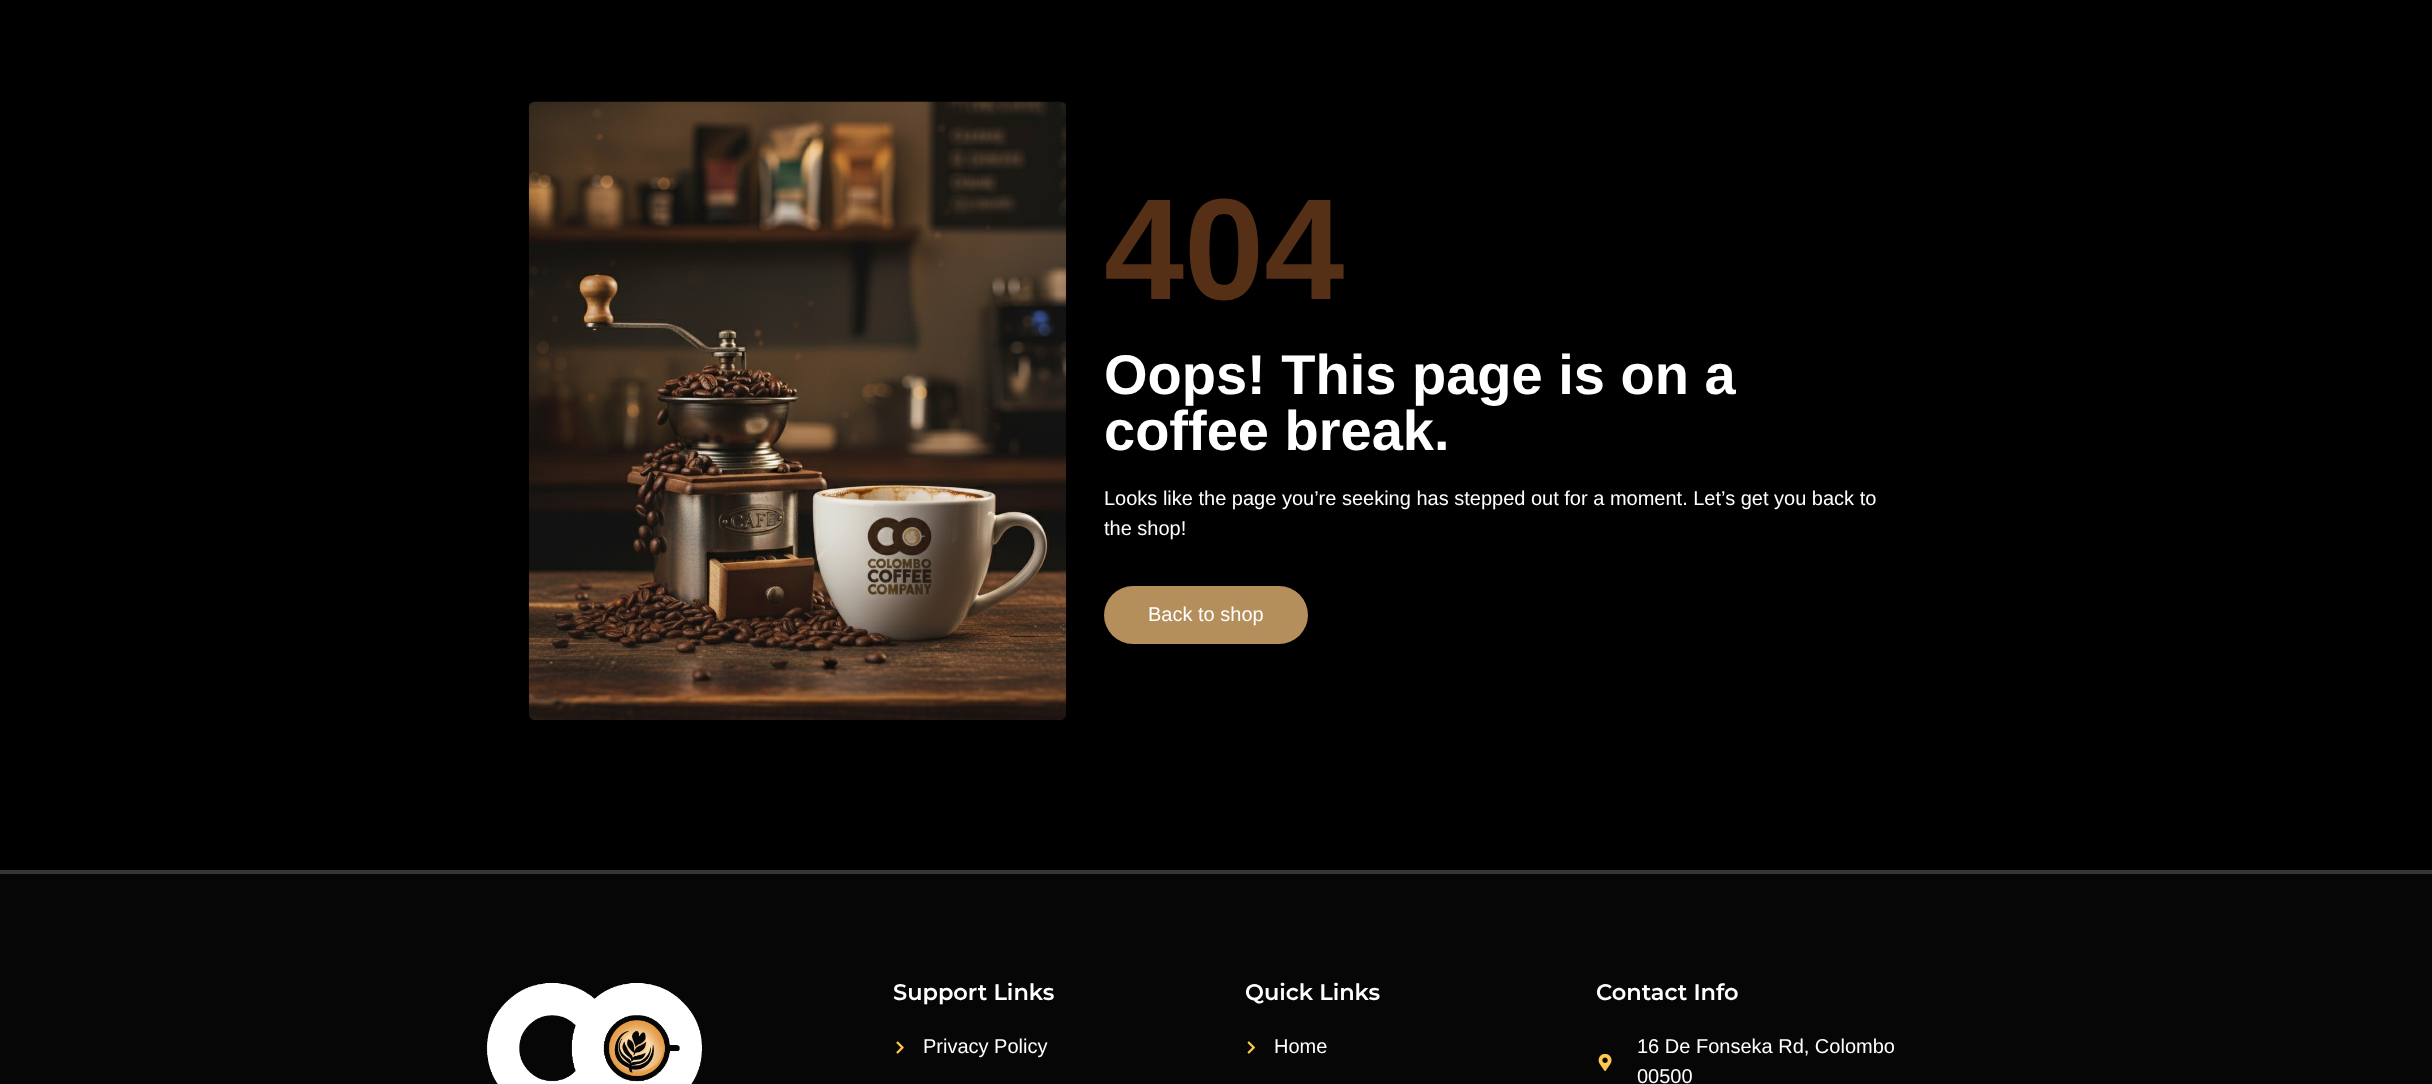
<svg xmlns="http://www.w3.org/2000/svg" width="2432" height="1084" viewBox="0 0 2432 1084">
  <style>
    .t1 { font: bold 144px Liberation Sans; fill: #553016; }
    .t2 { font: bold 56px Liberation Sans; fill: #fff; }
    .t3 { font: 20px Liberation Sans; fill: #fff; }
    .t4 { font: 600 22.5px Montserrat; fill: #fff; }
  </style>
  <rect width="100%" height="100%" fill="#000"/>
  <image x="528" y="101" width="539" height="619" href="images/1.png"/>
  <text x="1104" y="299" class="t1">404</text>
  <text x="1104" y="394" class="t2">Oops! This page is on a</text>
  <text x="1104" y="450" class="t2">coffee break.</text>
  <text x="1104" y="505" class="t3">Looks like the page you’re seeking has stepped out for a moment. Let’s get you back to</text>
  <text x="1104" y="535" class="t3">the shop!</text>
  <rect x="1104" y="586" width="204" height="58" rx="29" fill="#b48e5b"/>
  <text x="1148" y="621" class="t3">Back to shop</text>
  <rect x="0" y="870" width="2432" height="4" fill="#363636"/>
  <rect x="0" y="874" width="2432" height="210" fill="#060606"/>
  <image x="486" y="982" width="216" height="102" href="images/2.png"/>
  <text x="893" y="1000" class="t4">Support Links</text>
  <image x="896" y="1041" width="8" height="13" href="images/3.png"/>
  <text x="923" y="1053" class="t3">Privacy Policy</text>
  <text x="1245" y="1000" class="t4">Quick Links</text>
  <image x="1247" y="1041" width="8" height="13" href="images/4.png"/>
  <text x="1274" y="1053" class="t3">Home</text>
  <text x="1596" y="1000" class="t4">Contact Info</text>
  <image x="1598" y="1054" width="14" height="17" href="images/5.png"/>
  <text x="1637" y="1053" class="t3">16 De Fonseka Rd, Colombo</text>
  <text x="1637" y="1083" class="t3">00500</text>
</svg>
